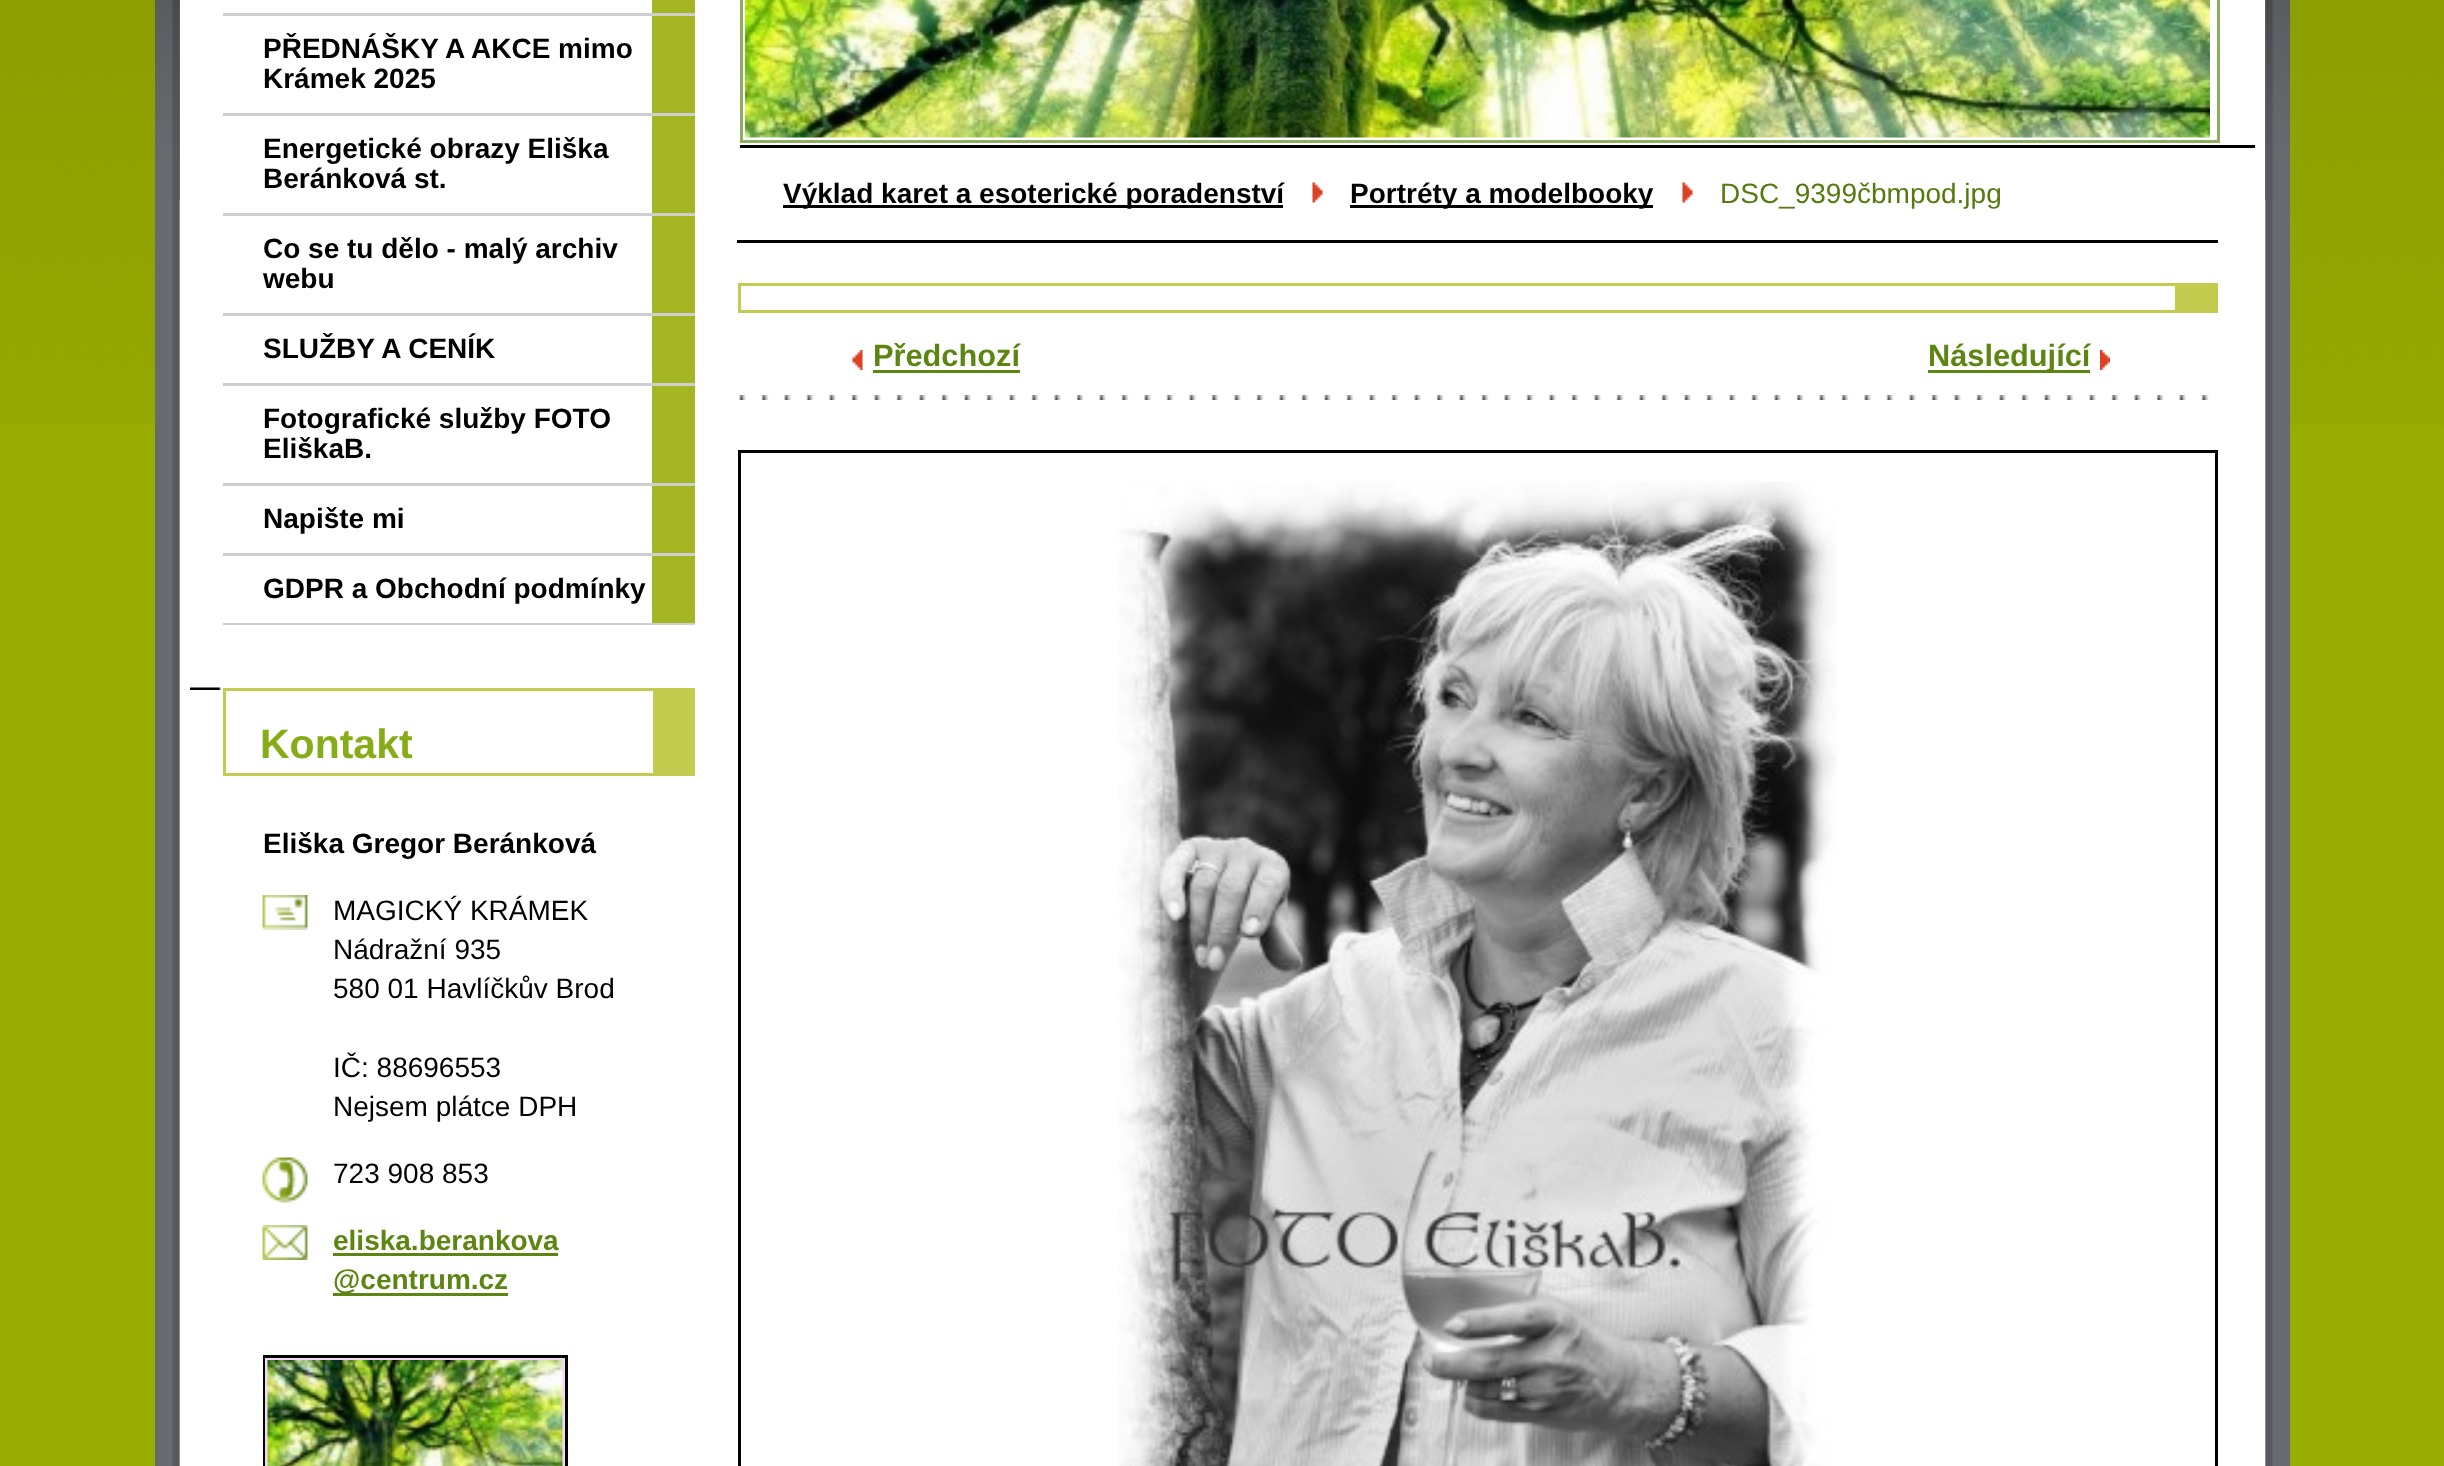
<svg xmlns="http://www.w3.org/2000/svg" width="2444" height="1466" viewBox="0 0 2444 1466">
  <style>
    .t1 { font: bold 28px Liberation Sans; fill: #000; }
    .t2 { font: bold 41px Liberation Sans; fill: #86ad17; }
    .t3 { font: 28px Liberation Sans; fill: #000; }
    .t4 { font: bold 28px Liberation Sans; fill: #5d8511; }
    .t5 { font: 28px Liberation Sans; fill: #567a0e; }
    .t6 { font: bold 30.75px Liberation Sans; fill: #5d8511; }
  </style>
  <rect width="100%" height="100%" fill="#97ad01"/>
  <image x="0" y="0" width="2444" height="425" href="images/1.png"/>
  <rect x="155" y="200" width="2135" height="1266" fill="#676a6e"/>
  <image x="172" y="0" width="2101" height="1466" href="images/2.png"/>
  <image x="155" y="0" width="2135" height="200" href="images/3.png"/>
  <rect x="180" y="0" width="2085" height="1466" fill="#fff"/>
  <rect x="652" y="0" width="43" height="623" fill="#a4b624"/>
  <rect x="223" y="13" width="472" height="3" fill="#cfcfcf"/>
  <rect x="223" y="113" width="472" height="3" fill="#cfcfcf"/>
  <text x="263" y="58" class="t1">PŘEDNÁŠKY A AKCE mimo</text>
  <text x="263" y="88" class="t1">Krámek 2025</text>
  <rect x="223" y="213" width="472" height="3" fill="#cfcfcf"/>
  <text x="263" y="158" class="t1">Energetické obrazy Eliška</text>
  <text x="263" y="188" class="t1">Beránková st.</text>
  <rect x="223" y="313" width="472" height="3" fill="#cfcfcf"/>
  <text x="263" y="258" class="t1">Co se tu dělo - malý archiv</text>
  <text x="263" y="288" class="t1">webu</text>
  <rect x="223" y="383" width="472" height="3" fill="#cfcfcf"/>
  <text x="263" y="358" class="t1">SLUŽBY A CENÍK</text>
  <rect x="223" y="483" width="472" height="3" fill="#cfcfcf"/>
  <text x="263" y="428" class="t1">Fotografické služby FOTO</text>
  <text x="263" y="458" class="t1">EliškaB.</text>
  <rect x="223" y="553" width="472" height="3" fill="#cfcfcf"/>
  <text x="263" y="528" class="t1">Napište mi</text>
  <rect x="223" y="623" width="472" height="2" fill="#cfcfcf"/>
  <text x="263" y="598" class="t1">GDPR a Obchodní podmínky</text>
  <image x="190" y="687" width="31" height="3" href="images/4.png"/>
  <rect x="223" y="688" width="430" height="3" fill="#c3cc4e"/>
  <rect x="653" y="688" width="42" height="85" fill="#c3cc4e"/>
  <rect x="223" y="773" width="472" height="3" fill="#c3cc4e"/>
  <rect x="223" y="688" width="3" height="87" fill="#c3cc4e"/>
  <text x="260" y="758" class="t2">Kontakt</text>
  <text x="263" y="853" class="t1">Eliška Gregor Beránková</text>
  <image x="262" y="895" width="46" height="35" href="images/5.png"/>
  <text x="333" y="920" class="t3">MAGICKÝ KRÁMEK</text>
  <text x="333" y="959" class="t3">Nádražní 935</text>
  <text x="333" y="998" class="t3">580 01 Havlíčkův Brod</text>
  <text x="333" y="1077" class="t3">IČ: 88696553</text>
  <text x="333" y="1116" class="t3">Nejsem plátce DPH</text>
  <image x="262" y="1157" width="46" height="46" href="images/6.png"/>
  <text x="333" y="1183" class="t3">723 908 853</text>
  <image x="262" y="1225" width="46" height="35" href="images/7.png"/>
  <text x="333" y="1250" class="t4">eliska.berankova</text>
  <rect x="333" y="1253" width="225" height="3" fill="#5d8511"/>
  <rect x="333" y="1293" width="175" height="3" fill="#5d8511"/>
  <text x="333" y="1289" class="t4">@centrum.cz</text>
  <rect x="264.5" y="1356.5" width="302" height="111" fill="none" stroke="#000" stroke-width="3"/>
  <rect x="266.5" y="1359.5" width="297" height="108" fill="none" stroke="#f4d8f7" stroke-width="3"/>
  <image x="267" y="1360" width="296" height="106" href="images/8.png"/>
  <rect x="740" y="145" width="1515" height="3" fill="#000"/>
  <rect x="741.5" y="-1.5" width="1477" height="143" fill="none" stroke="#8ead60" stroke-width="3"/>
  <image x="745" y="0" width="1465" height="138" href="images/9.png"/>
  <rect x="737" y="240" width="1481" height="3" fill="#000"/>
  <rect x="783" y="205" width="500" height="3" fill="#000"/>
  <text x="783" y="203" class="t1">Výklad karet a esoterické poradenství</text>
  <image x="1312" y="182" width="11" height="21" href="images/10.png"/>
  <rect x="1350" y="205" width="303" height="3" fill="#000"/>
  <text x="1350" y="203" class="t1">Portréty a modelbooky</text>
  <image x="1682" y="182" width="11" height="21" href="images/10.png"/>
  <text x="1720" y="203" class="t5">DSC_9399čbmpod.jpg</text>
  <rect x="738" y="283" width="1437" height="3" fill="#c3cc4e"/>
  <rect x="2175" y="283" width="43" height="27" fill="#c3cc4e"/>
  <rect x="738" y="310" width="1480" height="3" fill="#c3cc4e"/>
  <rect x="738" y="283" width="3" height="30" fill="#c3cc4e"/>
  <image x="739" y="395" width="1470" height="5" href="images/11.png"/>
  <image x="852" y="350" width="11" height="20" href="images/12.png"/>
  <text x="873" y="366" class="t6">Předchozí</text>
  <rect x="873" y="370" width="147" height="3" fill="#5d8511"/>
  <rect x="1928" y="370" width="162" height="3" fill="#5d8511"/>
  <text x="1928" y="366" class="t6">Následující</text>
  <image x="2100" y="350" width="10" height="20" href="images/13.png"/>
  <rect x="739.5" y="451.5" width="1477" height="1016" fill="none" stroke="#000" stroke-width="3"/>
  <image x="1118" y="481" width="719" height="985" href="images/14.png"/>
</svg>
